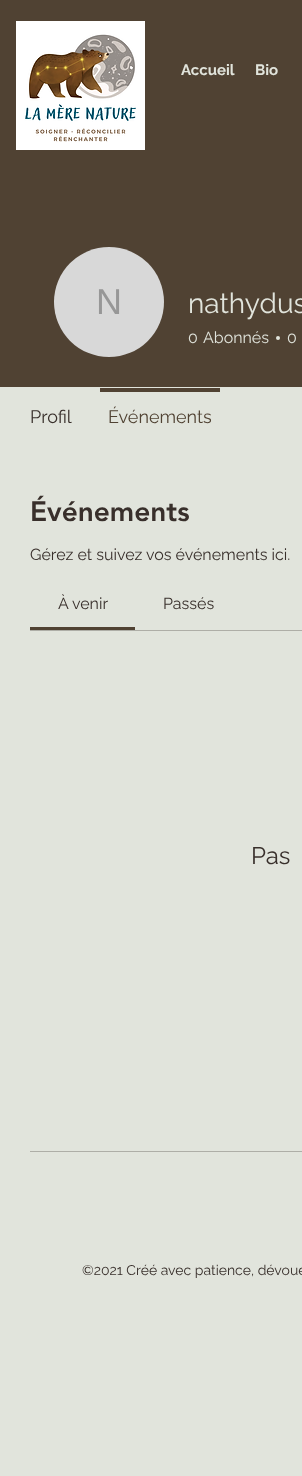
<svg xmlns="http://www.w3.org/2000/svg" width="302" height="1476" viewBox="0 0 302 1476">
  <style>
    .t1 { font: bold 15px Raleway; fill: #e1e4dc; }
    .t2 { font: 36px Liberation Sans; fill: #979797; }
    .t3 { font: 28px Raleway; fill: #e1e4dc; }
    .t4 { font: 16px Raleway; fill: #e1e4dc; }
    .t5 { font: 18px Raleway; fill: #382f2b; }
    .t6 { font: 18px Raleway; fill: #504233; }
    .t7 { font: 900 28px 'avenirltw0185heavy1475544'; fill: #382f2b; }
    .t8 { font: 16px Raleway; fill: #382f2b; }
    .t9 { font: 24px Raleway; fill: #382f2b; }
    .t10 { font: 14px Raleway; fill: #382f2b; }
  </style>
  <rect width="100%" height="100%" fill="#e1e4dc"/>
  <rect x="0" y="0" width="302" height="387" fill="#504233"/>
  <image x="16" y="21" width="129" height="129" href="images/1.png"/>
  <text x="181" y="75" class="t1">Accueil</text>
  <text x="255" y="75" class="t1">Bio</text>
  <circle cx="109" cy="302" r="55" fill="#d8d8d8"/>
  <text x="96" y="314" class="t2">N</text>
  <text x="188" y="313" class="t3">nathydus</text>
  <text x="188" y="343" class="t4">0</text>
  <text x="203" y="343" class="t4">Abonnés</text>
  <circle cx="278" cy="338" r="2" fill="#e1e4dc"/>
  <text x="287" y="343" class="t4">0</text>
  <text x="30" y="423" class="t5">Profil</text>
  <rect x="100" y="388" width="120" height="4" fill="#504233"/>
  <text x="108" y="423" class="t6">Événements</text>
  <text x="30" y="521" class="t7">Événements</text>
  <text x="30" y="560" class="t8">Gérez et suivez vos événements ici.</text>
  <rect x="30" y="627" width="105" height="3" fill="#504233"/>
  <text x="58" y="609" class="t8">À venir</text>
  <text x="163" y="609" class="t8">Passés</text>
  <rect x="30" y="630" width="272" height="1" fill="#aeaea7"/>
  <text x="251" y="864" class="t9">Pas</text>
  <rect x="30" y="1151" width="272" height="1" fill="#aeaea7"/>
  <text x="82" y="1275" class="t10">©2021 Créé avec patience, dévoue</text>
</svg>
